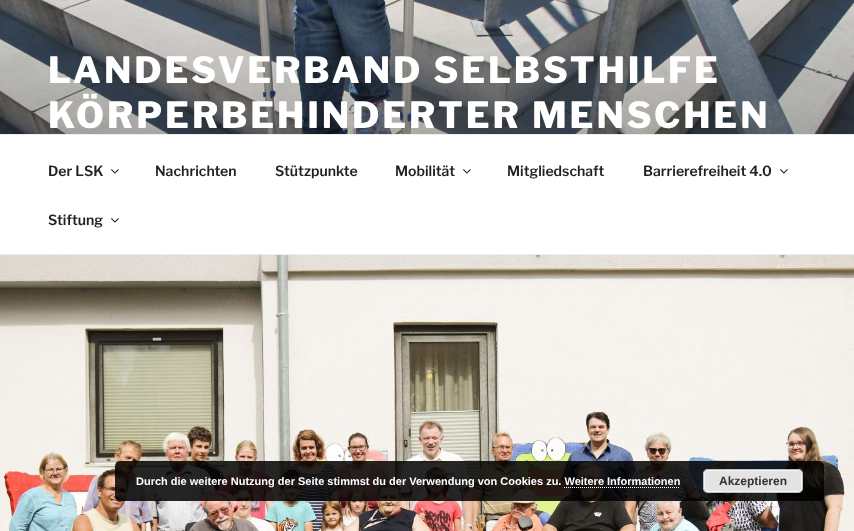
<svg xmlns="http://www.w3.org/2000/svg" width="854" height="531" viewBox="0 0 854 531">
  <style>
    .t1 { font: 100 36px Libre Franklin; letter-spacing: 2.9px; fill: #fff; }
    .t2 { font: 100 14px 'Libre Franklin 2'; fill: #222; }
    .t3 { font: bold 11px Liberation Sans; fill: #fff; }
    .t4 { font: bold 12px Liberation Sans; fill: #333; }
  </style>
  <rect width="100%" height="100%" fill="#fff"/>
  <image x="0" y="0" width="854" height="134" href="images/1.png"/>
  <text x="48" y="83" class="t1">LANDESVERBAND SELBSTHILFE</text>
  <text x="48" y="128" class="t1">KÖRPERBEHINDERTER MENSCHEN</text>
  <rect x="0" y="134" width="854" height="1" fill="#eee"/>
  <rect x="0" y="254" width="854" height="1" fill="#eee"/>
  <text x="48" y="176" class="t2">Der LSK</text>
  <image x="111" y="169" width="8" height="5" href="images/2.png"/>
  <text x="155" y="176" class="t2">Nachrichten</text>
  <text x="275" y="176" class="t2">Stützpunkte</text>
  <text x="395" y="176" class="t2">Mobilität</text>
  <image x="463" y="169" width="8" height="5" href="images/2.png"/>
  <text x="507" y="176" class="t2">Mitgliedschaft</text>
  <text x="643" y="176" class="t2">Barrierefreiheit 4.0</text>
  <image x="780" y="169" width="8" height="5" href="images/2.png"/>
  <text x="48" y="225" class="t2">Stiftung</text>
  <image x="111" y="218" width="8" height="5" href="images/2.png"/>
  <image x="0" y="255" width="854" height="276" href="images/3.png"/>
  <rect x="115" y="461" width="709" height="40" rx="5" fill="#000000d9"/>
  <text x="136" y="485" class="t3">Durch die weitere Nutzung der Seite stimmst du der Verwendung von Cookies zu. Weitere Informationen</text>
  <rect x="703" y="469" width="100" height="24" rx="5" fill="#e3e3e3"/>
  <rect x="704.5" y="470.5" width="97" height="21" rx="3.5" fill="none" stroke="#f6f6f6"/>
  <rect x="703.5" y="469.5" width="99" height="23" rx="4.5" fill="none" stroke="#bbb"/>
  <text x="719" y="485" class="t4">Akzeptieren</text>
  <path d="M564 487.5H680" fill="none" stroke="#fff" stroke-dasharray="1 1"/>
</svg>
